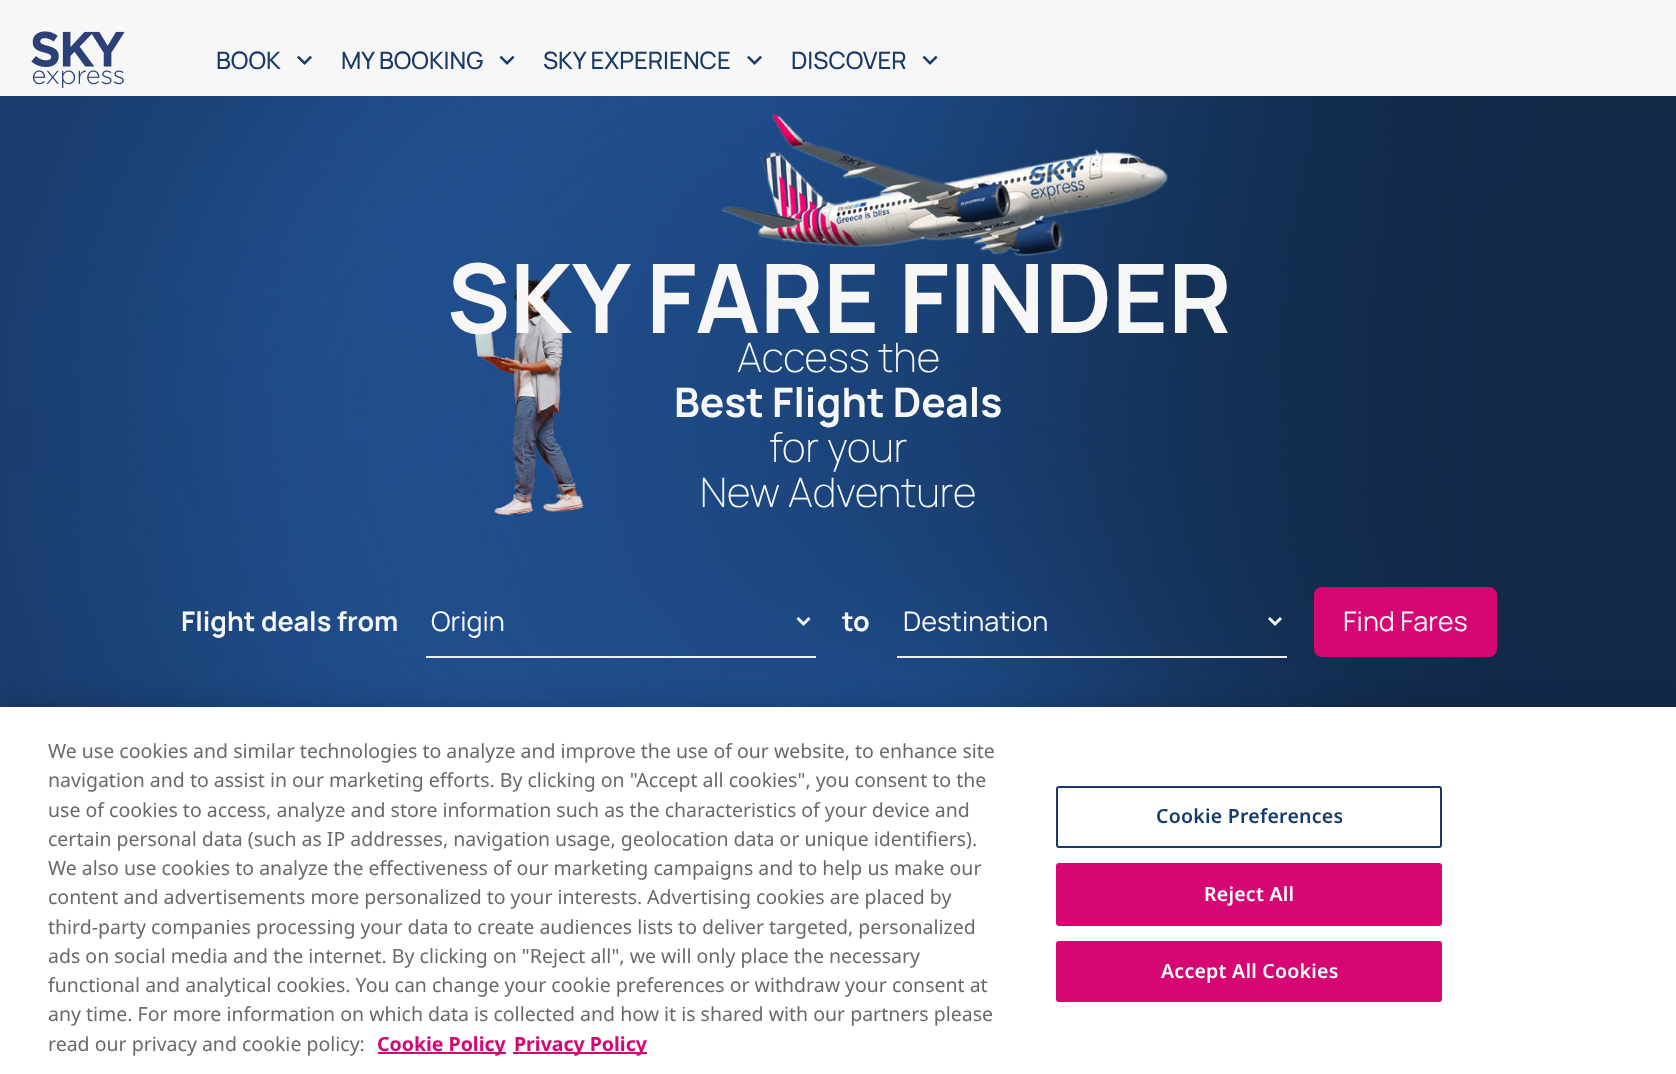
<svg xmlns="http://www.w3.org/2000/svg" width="1676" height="1074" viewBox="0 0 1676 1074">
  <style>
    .t1 { font: 500 24px Manrope; fill: #183a68; }
    .t2 { font: bold 96px Manrope; fill: #f7f7f7; }
    .t3 { font: 200 40.75px Manrope; fill: #f7f7f7; }
    .t4 { font: bold 40.75px Manrope; fill: #f7f7f7; }
    .t5 { font: bold 27px Manrope; fill: #f7f7f7; }
    .t6 { font: 27px Manrope; fill: #f7f7f7; }
    .t7 { font: 19.5px Noto Sans; fill: #696969; }
    .t8 { font: bold 19.5px Noto Sans; fill: #d60673; }
    .t9 { font: 600 19.5px Noto Sans; letter-spacing: 0.25px; fill: #183a68; }
    .t10 { font: 600 19.5px Noto Sans; letter-spacing: 0.25px; fill: #fff; }
  </style>
  <rect width="100%" height="100%" fill="#f7f7f7"/>
  <image x="31" y="31" width="94" height="58" href="images/1.png"/>
  <text x="216" y="69" class="t1">BOOK</text>
  <image x="297" y="55" width="15" height="10" href="images/2.png"/>
  <text x="341" y="69" class="t1">MY BOOKING</text>
  <image x="499" y="55" width="16" height="10" href="images/3.png"/>
  <text x="543" y="69" class="t1">SKY EXPERIENCE</text>
  <image x="747" y="55" width="15" height="10" href="images/2.png"/>
  <text x="791" y="69" class="t1">DISCOVER</text>
  <image x="922" y="55" width="16" height="10" href="images/3.png"/>
  <image x="0" y="96" width="1676" height="611" href="images/4.png"/>
  <text x="447" y="333" class="t2">SKY FARE FINDER</text>
  <text x="737" y="372" class="t3">Access the</text>
  <text x="674" y="417" class="t4">Best Flight Deals</text>
  <text x="769" y="462" class="t3">for your</text>
  <text x="700" y="507" class="t3">New Adventure</text>
  <text x="181" y="631" class="t5">Flight deals from</text>
  <rect x="426" y="656" width="390" height="2" fill="#efefee"/>
  <path d="M797.5 618L803.5 624L809.5 618" fill="none" stroke="#f7f7f7" stroke-width="3"/>
  <text x="431" y="631" class="t6">Origin</text>
  <text x="842" y="631" class="t5">to</text>
  <rect x="897" y="656" width="390" height="2" fill="#efefee"/>
  <path d="M1269 618L1275 624L1281 618" fill="none" stroke="#f7f7f7" stroke-width="3"/>
  <text x="903" y="631" class="t6">Destination</text>
  <rect x="1315" y="588" width="181" height="68" rx="7" fill="#d60673" stroke="#d60673" stroke-width="2"/>
  <text x="1343" y="631" class="t6">Find Fares</text>
  <rect x="0" y="707" width="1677" height="367" fill="#00000033" filter="blur(13.5px)"/>
  <rect x="0" y="707" width="1676" height="367" fill="#fff"/>
  <text x="48" y="758" class="t7">We use cookies and similar technologies to analyze and improve the use of our website, to enhance site</text>
  <text x="48" y="787" class="t7">navigation and to assist in our marketing efforts. By clicking on "Accept all cookies", you consent to the</text>
  <text x="48" y="817" class="t7">use of cookies to access, analyze and store information such as the characteristics of your device and</text>
  <text x="48" y="846" class="t7">certain personal data (such as IP addresses, navigation usage, geolocation data or unique identifiers).</text>
  <text x="48" y="875" class="t7">We also use cookies to analyze the effectiveness of our marketing campaigns and to help us make our</text>
  <text x="48" y="904" class="t7">content and advertisements more personalized to your interests.</text>
  <text x="647" y="904" class="t7">Advertising cookies are placed by</text>
  <text x="48" y="934" class="t7">third-party companies processing your data to create audiences lists to deliver targeted, personalized</text>
  <text x="48" y="963" class="t7">ads on social media and the internet. By clicking on "Reject all", we will only place the necessary</text>
  <text x="48" y="992" class="t7">functional and analytical cookies. You can change your cookie preferences or withdraw your consent at</text>
  <text x="48" y="1021" class="t7">any time. For more information on which data is collected and how it is shared with our partners please</text>
  <text x="48" y="1051" class="t7">read our privacy and cookie policy:</text>
  <rect x="378" y="1052" width="128" height="2" fill="#d60673"/>
  <text x="377" y="1051" class="t8">Cookie Policy</text>
  <rect x="513" y="1052" width="134" height="2" fill="#d60673"/>
  <text x="514" y="1051" class="t8">Privacy Policy</text>
  <rect x="1057" y="787" width="384" height="60" rx="2" fill="none" stroke="#183a68" stroke-width="2"/>
  <text x="1156" y="823" class="t9">Cookie Preferences</text>
  <rect x="1057" y="864" width="384" height="61" rx="2" fill="#d60673" stroke="#d60673" stroke-width="2"/>
  <text x="1204" y="901" class="t10">Reject All</text>
  <rect x="1057" y="942" width="384" height="59" rx="2" fill="#d60673" stroke="#d60673" stroke-width="2"/>
  <text x="1161" y="978" class="t10">Accept All Cookies</text>
</svg>
